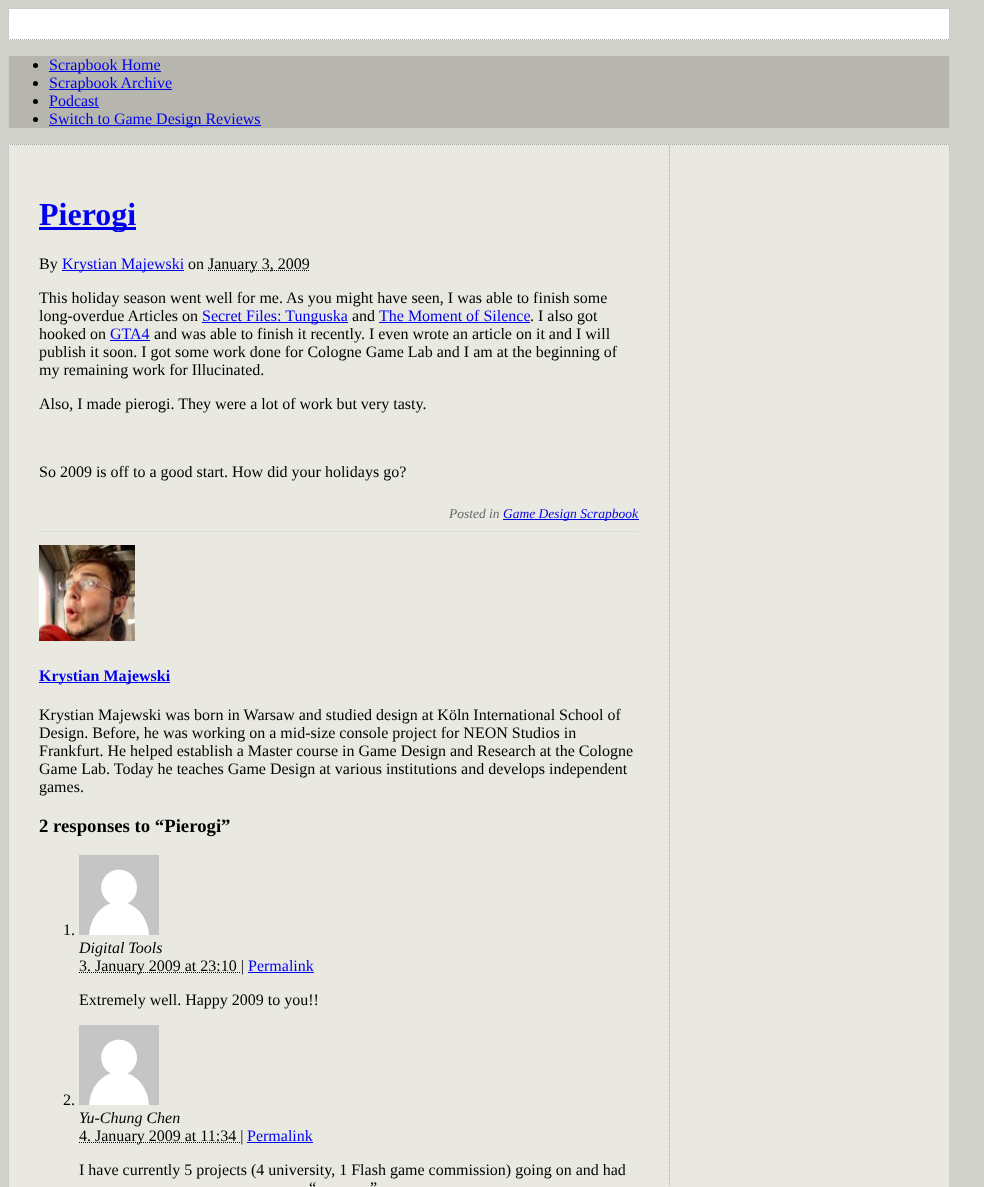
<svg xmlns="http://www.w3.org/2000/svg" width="984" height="1187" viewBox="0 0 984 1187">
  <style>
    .t1 { font: 16px Liberation Serif; fill: #00e; }
    .t2 { font: bold 32px Liberation Serif; fill: #00e; }
    .t3 { font: 16px Liberation Serif; fill: #000; }
    .t4 { font: italic 13.5px Liberation Serif; fill: #666; }
    .t5 { font: italic 13.5px Liberation Serif; fill: #00e; }
    .t6 { font: bold 16px Liberation Serif; fill: #00e; }
    .t7 { font: bold 18.75px Liberation Serif; fill: #000; }
    .t8 { font: italic 16px Liberation Serif; fill: #000; }
  </style>
  <rect width="100%" height="100%" fill="#d2d2cd"/>
  <rect x="9" y="9" width="940" height="31" fill="#fff"/>
  <rect x="8" y="8" width="942" height="1" fill="#ccc"/>
  <rect x="949" y="8" width="1" height="32" fill="#ccc"/>
  <path d="M8 39.5H950" fill="none" stroke="#aaa" stroke-dasharray="1 1"/>
  <rect x="8" y="8" width="1" height="32" fill="#ccc"/>
  <rect x="9" y="56" width="940" height="72" fill="#b6b6af"/>
  <rect x="949" y="56" width="1" height="72" fill="#ccc"/>
  <rect x="8" y="56" width="1" height="72" fill="#ccc"/>
  <circle cx="35.5" cy="65.5" r="2.5" fill="#000"/>
  <rect x="49" y="71" width="112" height="1" fill="#00e"/>
  <text x="49" y="70" class="t1">Scrapbook Home</text>
  <circle cx="35.5" cy="83.5" r="2.5" fill="#000"/>
  <rect x="49" y="89" width="123" height="1" fill="#00e"/>
  <text x="49" y="88" class="t1">Scrapbook Archive</text>
  <circle cx="35.5" cy="101.5" r="2.5" fill="#000"/>
  <text x="49" y="106" class="t1">Podcast</text>
  <rect x="49" y="107" width="50" height="1" fill="#00e"/>
  <circle cx="35.5" cy="119.5" r="2.5" fill="#000"/>
  <rect x="49" y="125" width="212" height="1" fill="#00e"/>
  <text x="49" y="124" class="t1">Switch to Game Design Reviews</text>
  <rect x="9" y="144" width="940" height="1043" fill="#e9e9e2"/>
  <path d="M8 144.5H950" fill="none" stroke="#aaa" stroke-dasharray="1 1"/>
  <rect x="949" y="144" width="1" height="1043" fill="#ccc"/>
  <rect x="8" y="144" width="1" height="1043" fill="#ccc"/>
  <path d="M669.5 145V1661" fill="none" stroke="#aaa" stroke-dasharray="1 1"/>
  <rect x="39" y="227" width="97" height="3" fill="#00e"/>
  <text x="39" y="225" class="t2">Pierogi</text>
  <text x="39" y="269" class="t3">By</text>
  <rect x="62" y="270" width="122" height="1" fill="#00e"/>
  <text x="62" y="269" class="t1">Krystian Majewski</text>
  <text x="188" y="269" class="t3">on</text>
  <path d="M208 270.5H309.5" fill="none" stroke="#000" stroke-dasharray="1 1"/>
  <text x="208" y="269" class="t3">January 3, 2009</text>
  <text x="39" y="303" class="t3">This holiday season went well for me. As you might have seen, I was able to finish some</text>
  <text x="39" y="321" class="t3">long-overdue Articles on</text>
  <rect x="202" y="322" width="146" height="1" fill="#00e"/>
  <text x="202" y="321" class="t1">Secret Files: Tunguska</text>
  <text x="352" y="321" class="t3">and</text>
  <text x="379" y="321" class="t1">The Moment of Silence</text>
  <rect x="379" y="322" width="151" height="1" fill="#00e"/>
  <text x="530" y="321" class="t3">. I also got</text>
  <text x="39" y="339" class="t3">hooked on</text>
  <text x="110" y="339" class="t1">GTA4</text>
  <rect x="110" y="340" width="40" height="1" fill="#00e"/>
  <text x="154" y="339" class="t3">and was able to finish it recently. I even wrote an article on it and I will</text>
  <text x="39" y="357" class="t3">publish it soon. I got some work done for Cologne Game Lab and I am at the beginning of</text>
  <text x="39" y="375" class="t3">my remaining work for Illucinated.</text>
  <text x="39" y="409" class="t3">Also, I made pierogi. They were a lot of work but very tasty.</text>
  <text x="39" y="477" class="t3">So 2009 is off to a good start. How did your holidays go?</text>
  <rect x="39" y="531" width="600" height="1" fill="#ddd"/>
  <text x="449" y="518" class="t4">Posted in</text>
  <rect x="503" y="519" width="136" height="1" fill="#00e"/>
  <text x="503" y="518" class="t5">Game Design Scrapbook</text>
  <image x="39" y="545" width="96" height="96" href="images/1.png"/>
  <rect x="39" y="682" width="131" height="1" fill="#00e"/>
  <text x="39" y="681" class="t6">Krystian Majewski</text>
  <text x="39" y="720" class="t3">Krystian Majewski was born in Warsaw and studied design at Köln International School of</text>
  <text x="39" y="738" class="t3">Design. Before, he was working on a mid-size console project for NEON Studios in</text>
  <text x="39" y="756" class="t3">Frankfurt. He helped establish a Master course in Game Design and Research at the Cologne</text>
  <text x="39" y="774" class="t3">Game Lab. Today he teaches Game Design at various institutions and develops independent</text>
  <text x="39" y="792" class="t3">games.</text>
  <text x="39" y="832" class="t7">2 responses to “Pierogi”</text>
  <text x="63" y="935" class="t3">1.</text>
  <image x="79" y="855" width="80" height="80" href="images/2.png"/>
  <text x="79" y="953" class="t8">Digital Tools</text>
  <path d="M79 972.5H241" fill="none" stroke="#000" stroke-dasharray="1 1"/>
  <text x="79" y="971" class="t3">3. January 2009 at 23:10 |</text>
  <text x="248" y="971" class="t1">Permalink</text>
  <rect x="248" y="972" width="66" height="1" fill="#00e"/>
  <text x="79" y="1005" class="t3">Extremely well. Happy 2009 to you!!</text>
  <text x="63" y="1105" class="t3">2.</text>
  <image x="79" y="1025" width="80" height="80" href="images/2.png"/>
  <text x="79" y="1123" class="t8">Yu-Chung Chen</text>
  <path d="M79 1142.5H240" fill="none" stroke="#000" stroke-dasharray="1 1"/>
  <text x="79" y="1141" class="t3">4. January 2009 at 11:34 |</text>
  <text x="247" y="1141" class="t1">Permalink</text>
  <rect x="247" y="1142" width="66" height="1" fill="#00e"/>
  <text x="79" y="1175" class="t3">I have currently 5 projects (4 university, 1 Flash game commission) going on and had</text>
  <text x="309" y="1193" class="t3">“</text>
  <text x="370" y="1193" class="t3">”</text>
</svg>
